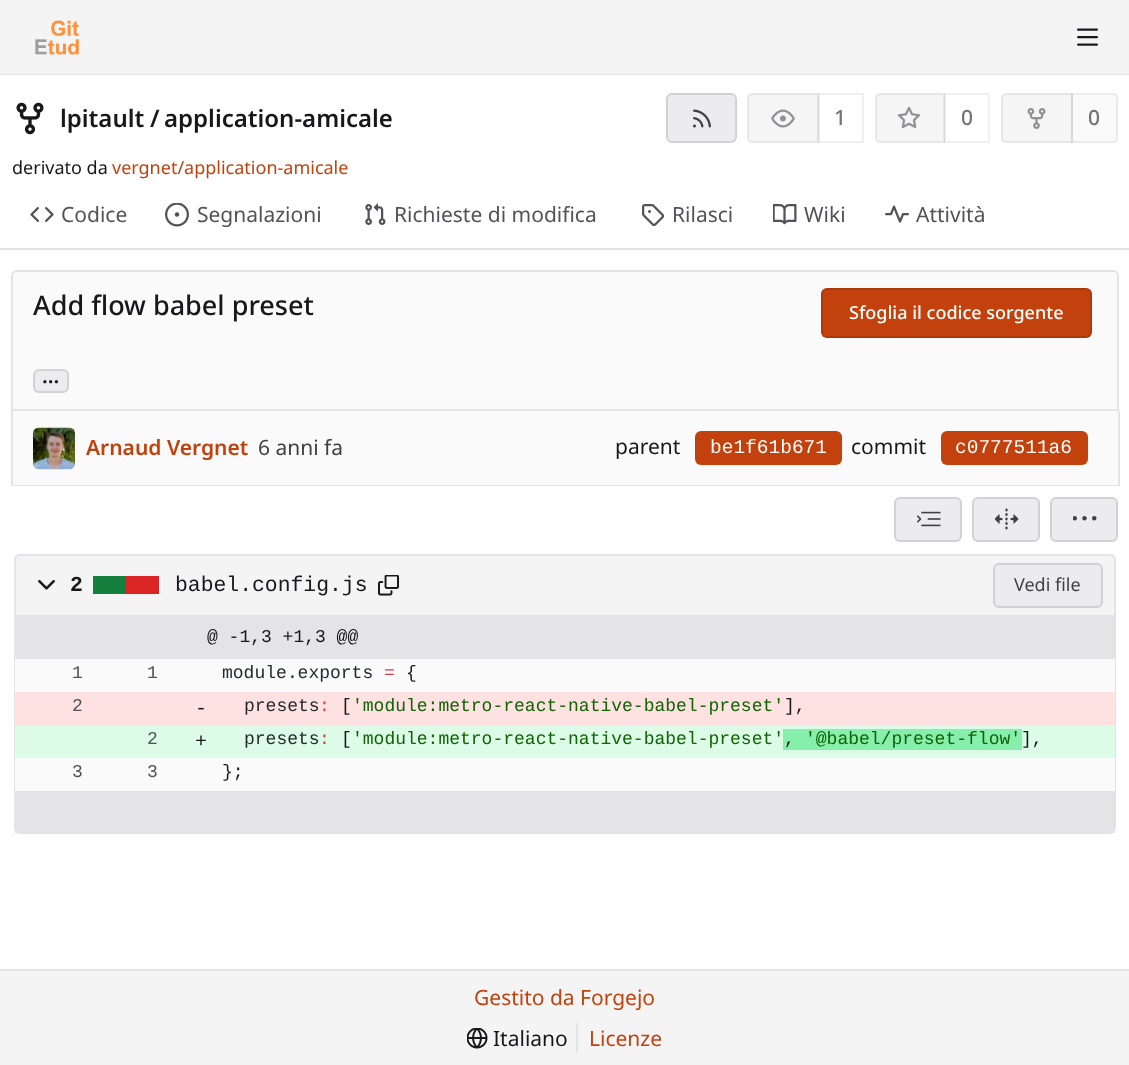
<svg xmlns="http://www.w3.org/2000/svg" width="1129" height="1065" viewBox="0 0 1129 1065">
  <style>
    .t1 { font: 600 24px Noto Sans; fill: #18181b; }
    .t2 { font: 500 21px Noto Sans; fill: #737373; }
    .t3 { font: 18px Noto Sans; fill: #18181b; }
    .t4 { font: 18px Noto Sans; fill: #c2410c; }
    .t5 { font: 21px Noto Sans; fill: #52525b; }
    .t6 { font: 500 27px Noto Sans; fill: #18181b; }
    .t7 { font: 500 18px Noto Sans; fill: #fff; }
    .t8 { font: 600 21px Noto Sans; fill: #18181b; }
    .t9 { font: 600 21px Noto Sans; fill: #c2410c; }
    .t10 { font: 21px Noto Sans; fill: #3f3f46; }
    .t11 { font: 21px Noto Sans; fill: #18181b; }
    .t12 { font: 19.5px Liberation Mono; fill: #fff; }
    .t13 { font: bold 21.4px Liberation Mono; fill: #18181b; }
    .t14 { font: 21.4px Liberation Mono; fill: #18181b; }
    .t15 { font: 18px Noto Sans; fill: #3f3f46; }
    .t16 { font: 18px Liberation Mono; fill: #18181b; }
    .t17 { font: 18px Liberation Mono; fill: #52525b; }
    .t18 { font: 18px Liberation Mono; fill: #24292e; }
    .t19 { font: 18px Liberation Mono; fill: #d73a49; }
    .t20 { font: 20px Liberation Mono; fill: #18181b; }
    .t21 { font: 18px Liberation Mono; fill: #106303; }
    .t22 { font: 21px Noto Sans; fill: #c2410c; }
  </style>
  <rect width="100%" height="100%" fill="#fff"/>
  <rect x="0" y="0" width="1129" height="74" fill="#f4f4f5"/>
  <rect x="0" y="74" width="1129" height="1" fill="#e4e4e7"/>
  <image x="35" y="20" width="44" height="35" href="images/1.png"/>
  <image x="1077" y="28" width="21" height="18" href="images/2.png"/>
  <image x="16" y="102" width="28" height="33" href="images/3.png"/>
  <text x="60" y="127" class="t1">lpitault</text>
  <text x="150" y="127" class="t1">/</text>
  <text x="164" y="127" class="t1">application-amicale</text>
  <rect x="666" y="93" width="71" height="50" rx="6" fill="#ececee"/>
  <rect x="667" y="94" width="69" height="48" rx="5" fill="none" stroke="#0000001c" stroke-width="2"/>
  <image x="693" y="109" width="18" height="19" href="images/4.png"/>
  <path d="M753 94H818V142H753C750 142 748 140 748 137V99C748 96 750 94 753 94Z" fill="#f5f5f6" stroke="#e6e6e7" stroke-width="2"/>
  <image x="771" y="109" width="24" height="19" href="images/5.png"/>
  <rect x="819" y="94" width="44" height="48" fill="none" stroke="#0000000f" stroke-width="2"/>
  <text x="834" y="125" class="t2">1</text>
  <path d="M881 94H944V142H881C878 142 876 140 876 137V99C876 96 878 94 881 94Z" fill="#f5f5f6" stroke="#e6e6e7" stroke-width="2"/>
  <image x="897" y="107" width="24" height="22" href="images/6.png"/>
  <rect x="945" y="94" width="44" height="48" fill="none" stroke="#0000000f" stroke-width="2"/>
  <text x="961" y="125" class="t2">0</text>
  <path d="M1007 94H1072V142H1007C1004 142 1002 140 1002 137V99C1002 96 1004 94 1007 94Z" fill="#f5f5f6" stroke="#e6e6e7" stroke-width="2"/>
  <image x="1027" y="108" width="19" height="21" href="images/7.png"/>
  <rect x="1071" y="93" width="47" height="50" fill="#7373730a"/>
  <path d="M1072 94H1112C1115 94 1117 96 1117 99V137C1117 140 1115 142 1112 142H1072Z" fill="none" stroke="#7373731c" stroke-width="2"/>
  <text x="1088" y="125" class="t2">0</text>
  <text x="12" y="174" class="t3">derivato da</text>
  <text x="112" y="174" class="t4">vergnet/application-amicale</text>
  <image x="30" y="207" width="24" height="15" href="images/8.png"/>
  <text x="61" y="222" class="t5">Codice</text>
  <image x="165" y="203" width="24" height="24" href="images/9.png"/>
  <text x="197" y="222" class="t5">Segnalazioni</text>
  <image x="365" y="203" width="21" height="22" href="images/10.png"/>
  <text x="394" y="222" class="t5">Richieste di modifica</text>
  <image x="642" y="204" width="23" height="23" href="images/11.png"/>
  <text x="672" y="222" class="t5">Rilasci</text>
  <image x="773" y="204" width="24" height="21" href="images/12.png"/>
  <text x="804" y="222" class="t5">Wiki</text>
  <image x="885" y="205" width="24" height="18" href="images/13.png"/>
  <text x="916" y="222" class="t5">Attività</text>
  <rect x="0" y="248" width="1129" height="2" fill="#e4e4e7"/>
  <path d="M17 271H1113C1116 271 1118 273 1118 276V410H12V276C12 273 14 271 17 271Z" fill="#fafafa" stroke="#e4e4e7" stroke-width="2"/>
  <text x="33" y="315" class="t6">Add flow babel preset</text>
  <rect x="821" y="288" width="271" height="50" rx="6" fill="#c2410c"/>
  <rect x="822" y="289" width="269" height="48" rx="5" fill="none" stroke="#0000001c" stroke-width="2"/>
  <text x="849" y="319" class="t7">Sfoglia il codice sorgente</text>
  <rect x="33" y="369" width="36" height="24" rx="6" fill="#ececee"/>
  <rect x="34" y="370" width="34" height="22" rx="5" fill="none" stroke="#0000001c" stroke-width="2"/>
  <text x="42" y="383" class="t8">...</text>
  <rect x="13" y="411" width="1105" height="74" fill="#fafafa"/>
  <rect x="1118" y="411" width="2" height="75" fill="#e4e4e7"/>
  <rect x="11" y="485" width="1108" height="1" fill="#e4e4e7"/>
  <rect x="11" y="411" width="2" height="75" fill="#e4e4e7"/>
  <image x="33" y="427" width="42" height="43" href="images/14.png"/>
  <text x="86" y="455" class="t9">Arnaud Vergnet</text>
  <text x="258" y="455" class="t10">6 anni fa</text>
  <text x="615" y="454" class="t11">parent</text>
  <rect x="695" y="431" width="147" height="34" rx="6" fill="#c2410c"/>
  <text x="710" y="453" class="t12">be1f61b671</text>
  <text x="851" y="454" class="t11">commit</text>
  <rect x="941" y="431" width="147" height="34" rx="6" fill="#c2410c"/>
  <text x="955" y="453" class="t12">c0777511a6</text>
  <rect x="894" y="497" width="68" height="45" rx="6" fill="#ececee"/>
  <rect x="895" y="498" width="66" height="43" rx="5" fill="none" stroke="#0000001c" stroke-width="2"/>
  <image x="917" y="511" width="24" height="16" href="images/15.png"/>
  <rect x="972" y="497" width="68" height="45" rx="6" fill="#ececee"/>
  <rect x="973" y="498" width="66" height="43" rx="5" fill="none" stroke="#0000001c" stroke-width="2"/>
  <image x="995" y="508" width="24" height="22" href="images/16.png"/>
  <rect x="1050" y="497" width="68" height="45" rx="6" fill="#ececee"/>
  <rect x="1051" y="498" width="66" height="43" rx="5" fill="none" stroke="#0000001c" stroke-width="2"/>
  <image x="1073" y="516" width="24" height="5" href="images/17.png"/>
  <path d="M14 616H1116V828C1116 831 1113 834 1110 834H20C16 834 14 831 14 828ZM15 616H1114V828C1114 830 1112 832 1110 832H20C17 832 15 830 15 828Z" fill="#e4e4e7" fill-rule="evenodd"/>
  <path d="M20 555H1110C1113 555 1115 557 1115 560V616H15V560C15 557 17 555 20 555Z" fill="#f4f4f5" stroke="#e4e4e7" stroke-width="2"/>
  <image x="38" y="580" width="17" height="10" href="images/18.png"/>
  <text x="70" y="591" class="t13">2</text>
  <rect x="126" y="576" width="33" height="18" fill="#dc2626"/>
  <rect x="93" y="576" width="33" height="18" fill="#15803d"/>
  <text x="175" y="591" class="t14">babel.config.js</text>
  <image x="378" y="575" width="21" height="21" href="images/19.png"/>
  <rect x="994" y="564" width="108" height="43" rx="5" fill="#ececee" stroke="#d1d1d3" stroke-width="2"/>
  <text x="1014" y="591" class="t15">Vedi file</text>
  <rect x="15" y="659" width="1100" height="132" fill="#fafafa"/>
  <rect x="15" y="617" width="1099" height="42" fill="#e4e4e7"/>
  <text x="207" y="642" class="t16">@ -1,3 +1,3 @@</text>
  <text x="72" y="678" class="t17">1</text>
  <text x="147" y="678" class="t17">1</text>
  <text x="222" y="678" class="t18">module exports</text>
  <text x="384" y="678" class="t19">=</text>
  <text x="406" y="678" class="t16">{</text>
  <text x="287" y="678" class="t16">.</text>
  <rect x="15" y="692" width="1100" height="33" fill="#fee2e2"/>
  <text x="72" y="711" class="t17">2</text>
  <text x="195" y="714" class="t20">-</text>
  <text x="244" y="711" class="t18">presets</text>
  <text x="319" y="711" class="t19">:</text>
  <text x="341" y="711" class="t16">[</text>
  <text x="352" y="711" class="t21">'module:metro-react-native-babel-preset'</text>
  <text x="784" y="711" class="t16">],</text>
  <rect x="15" y="725" width="1100" height="33" fill="#dcfce7"/>
  <text x="147" y="744" class="t17">2</text>
  <text x="195" y="747" class="t20">+</text>
  <text x="244" y="744" class="t18">presets</text>
  <text x="319" y="744" class="t19">:</text>
  <text x="341" y="744" class="t16">[</text>
  <text x="352" y="744" class="t21">'module:metro-react-native-babel-preset'</text>
  <rect x="783" y="729" width="239" height="21" fill="#86efac"/>
  <text x="784" y="744" class="t16">,</text>
  <text x="805" y="744" class="t21">'@babel/preset-flow'</text>
  <text x="1021" y="744" class="t16">],</text>
  <text x="72" y="777" class="t17">3</text>
  <text x="147" y="777" class="t17">3</text>
  <text x="222" y="777" class="t16">};</text>
  <rect x="15" y="791" width="1100" height="42" fill="#e4e4e7"/>
  <rect x="0" y="971" width="1129" height="94" fill="#f4f4f5"/>
  <rect x="0" y="969" width="1129" height="2" fill="#e4e4e7"/>
  <text x="474" y="1005" class="t22">Gestito da Forgejo</text>
  <image x="467" y="1028" width="21" height="21" href="images/20.png"/>
  <text x="493" y="1046" class="t11">Italiano</text>
  <rect x="576" y="1023" width="2" height="30" fill="#e4e4e7"/>
  <text x="589" y="1046" class="t22">Licenze</text>
</svg>
